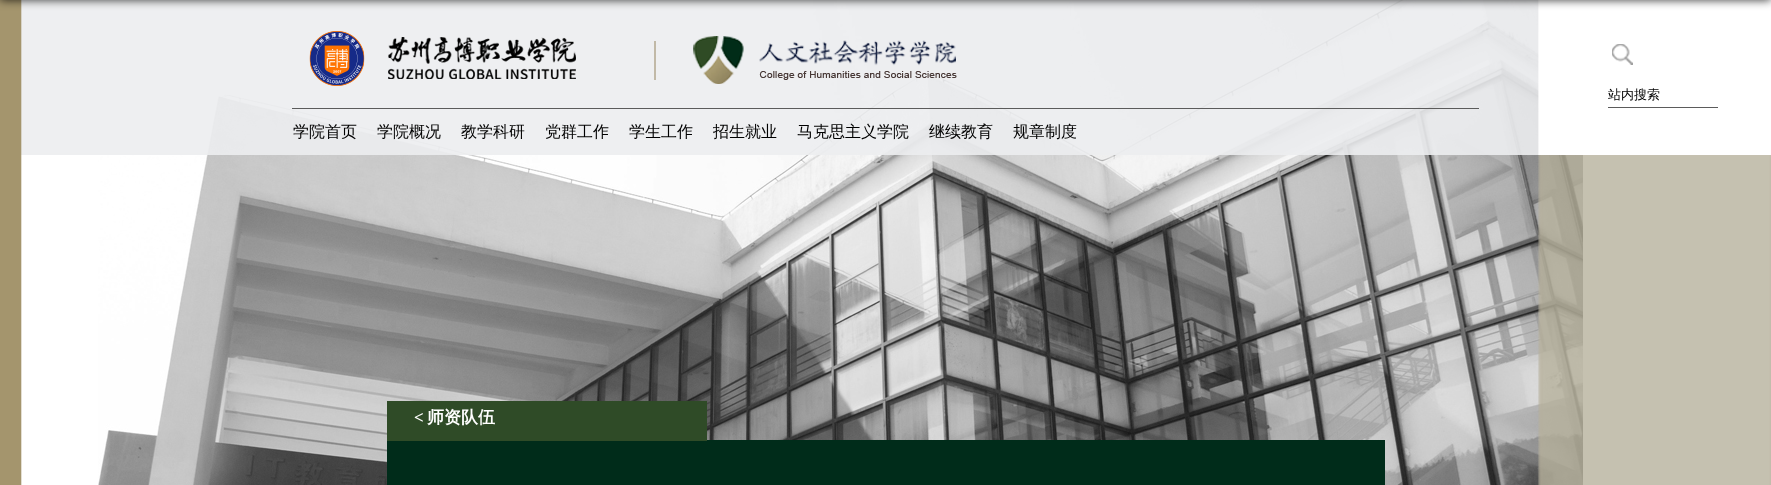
<svg xmlns="http://www.w3.org/2000/svg" width="1771" height="485" viewBox="0 0 1771 485">
  <style>
    .t1 { font: 500 13px WenQuanYi Zen Hei; fill: #000; }
    .t2 { font: 500 16px WenQuanYi Zen Hei; fill: #000; }
    .t3 { font: bold 17px Liberation Serif; fill: #fff; }
    .t4 { font: bold 17px WenQuanYi Zen Hei; fill: #fff; }
  </style>
  <rect width="100%" height="100%" fill="#fff"/>
  <image x="98" y="0" width="1485" height="485" href="images/5.png"/>
  <rect x="387" y="440" width="998" height="45" fill="#002c1a"/>
  <image x="0" y="0" width="1771" height="485" href="images/1.png"/>
  <rect x="0" y="-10" width="1771" height="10" fill="#000000cc" filter="blur(5px)"/>
  <rect x="292" y="108" width="1187" height="1" fill="#5b5b5b"/>
  <image x="309" y="31" width="267" height="55" href="images/2.png"/>
  <rect x="654" y="41" width="2" height="39" fill="#c1b9a7"/>
  <image x="693" y="36" width="264" height="48" href="images/3.png"/>
  <image x="1612" y="44" width="21" height="21" href="images/4.png"/>
  <rect x="1608" y="107" width="110" height="1" fill="#5b5b5b"/>
  <text x="1608" y="99" class="t1">站内搜索</text>
  <text x="293" y="137" class="t2">学院首页</text>
  <text x="377" y="137" class="t2">学院概况</text>
  <text x="461" y="137" class="t2">教学科研</text>
  <text x="545" y="137" class="t2">党群工作</text>
  <text x="629" y="137" class="t2">学生工作</text>
  <text x="713" y="137" class="t2">招生就业</text>
  <text x="797" y="137" class="t2">马克思主义学院</text>
  <text x="929" y="137" class="t2">继续教育</text>
  <text x="1013" y="137" class="t2">规章制度</text>
  <rect x="387" y="401" width="320" height="40" fill="#2f4b27"/>
  <text x="414" y="423" class="t3">&lt;</text>
  <text x="427" y="423" class="t4">师资队伍</text>
</svg>
